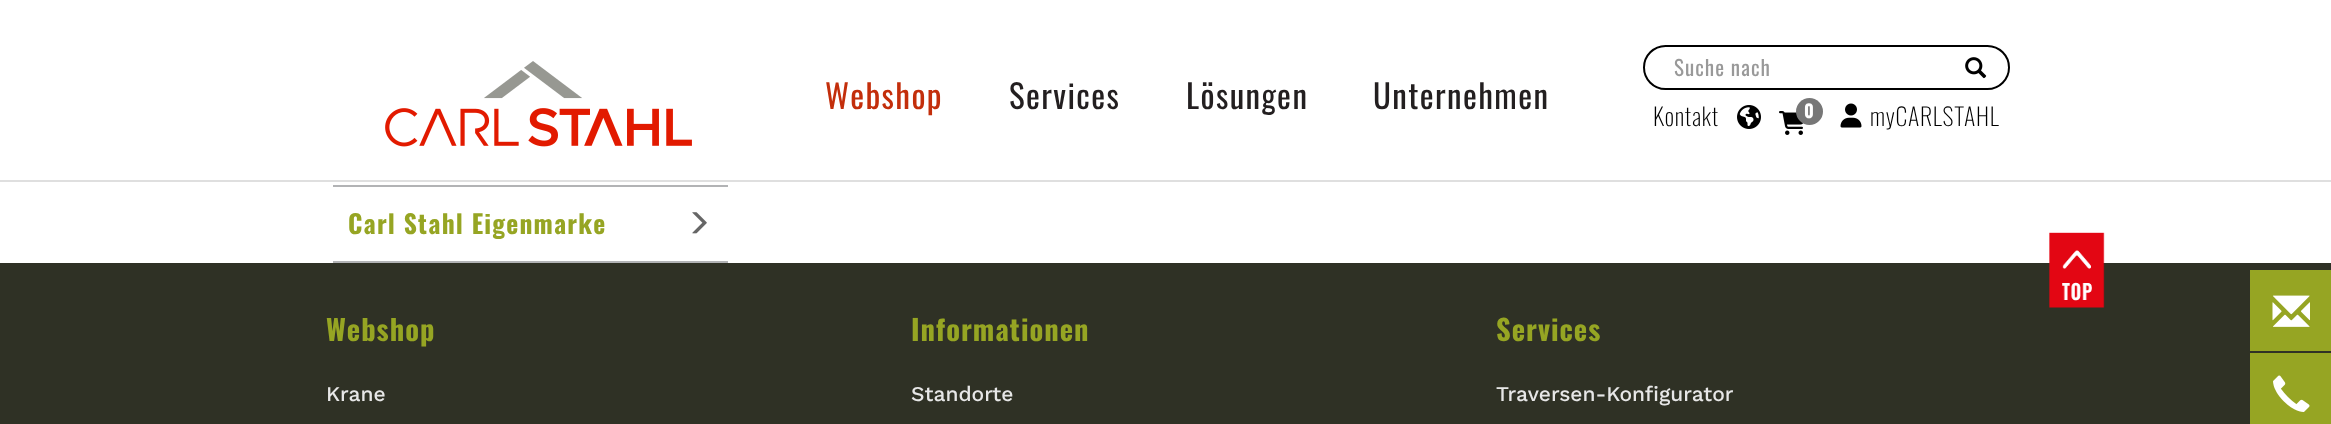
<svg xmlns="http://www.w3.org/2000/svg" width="2331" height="424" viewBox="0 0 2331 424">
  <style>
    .t1 { font: 33px Oswald; letter-spacing: 1.4px; fill: #c32e0b; }
    .t2 { font: 33px Oswald; letter-spacing: 1.4px; fill: #231f20; }
    .t3 { font: 21px Oswald; letter-spacing: 1px; fill: #999; }
    .t4 { font: 200 24px Oswald; letter-spacing: 0.75px; fill: #000; }
    .t5 { font: bold 18px Oswald; letter-spacing: 0.75px; fill: #fff; }
    .t6 { font: bold 25.5px Oswald; letter-spacing: 1.2px; fill: #96a523; }
    .t7 { font: bold 28.5px Oswald; letter-spacing: 1px; fill: #96a523; }
    .t8 { font: 500 21px Work Sans; fill: #e7e7e7; }
  </style>
  <rect width="100%" height="100%" fill="#fff"/>
  <rect x="0" y="180" width="2331" height="2" fill="#dfdfdf"/>
  <image x="385" y="61" width="307" height="86" href="images/1.png"/>
  <text x="825" y="109" class="t1">Webshop</text>
  <text x="1009" y="109" class="t2">Services</text>
  <text x="1186" y="109" class="t2">Lösungen</text>
  <text x="1373" y="109" class="t2">Unternehmen</text>
  <rect x="1644" y="46" width="365" height="43" rx="21.5" fill="none" stroke="#000" stroke-width="2"/>
  <text x="1674" y="76" class="t3">Suche nach</text>
  <image x="1965" y="57" width="22" height="22" href="images/2.png"/>
  <text x="1653" y="126" class="t4">Kontakt</text>
  <image x="1737" y="105" width="24" height="24" href="images/3.png"/>
  <image x="1779" y="111" width="25" height="24" href="images/4.png"/>
  <circle cx="1809.5" cy="111.5" r="13.5" fill="#777"/>
  <text x="1804" y="118" class="t5">0</text>
  <image x="1840" y="103" width="22" height="25" href="images/5.png"/>
  <text x="1870" y="126" class="t4">myCARLSTAHL</text>
  <rect x="333" y="185" width="395" height="2" fill="#b2b3b5"/>
  <rect x="333" y="261" width="395" height="2" fill="#b2b3b5"/>
  <text x="348" y="234" class="t6">Carl Stahl Eigenmarke</text>
  <image x="692" y="212" width="15" height="22" href="images/6.png"/>
  <rect x="0" y="263" width="2331" height="161" fill="#2f3125"/>
  <image x="2049" y="232" width="56" height="76" href="images/7.png"/>
  <text x="326" y="341" class="t7">Webshop</text>
  <text x="326" y="401" class="t8">Krane</text>
  <text x="911" y="341" class="t7">Informationen</text>
  <text x="911" y="401" class="t8">Standorte</text>
  <text x="1496" y="341" class="t7">Services</text>
  <text x="1496" y="401" class="t8">Traversen-Konfigurator</text>
  <rect x="2250" y="270" width="81" height="81" fill="#96a523"/>
  <image x="2272" y="295" width="38" height="32" href="images/8.png"/>
  <rect x="2250" y="353" width="81" height="71" fill="#96a523"/>
  <image x="2273" y="375" width="37" height="37" href="images/9.png"/>
</svg>
